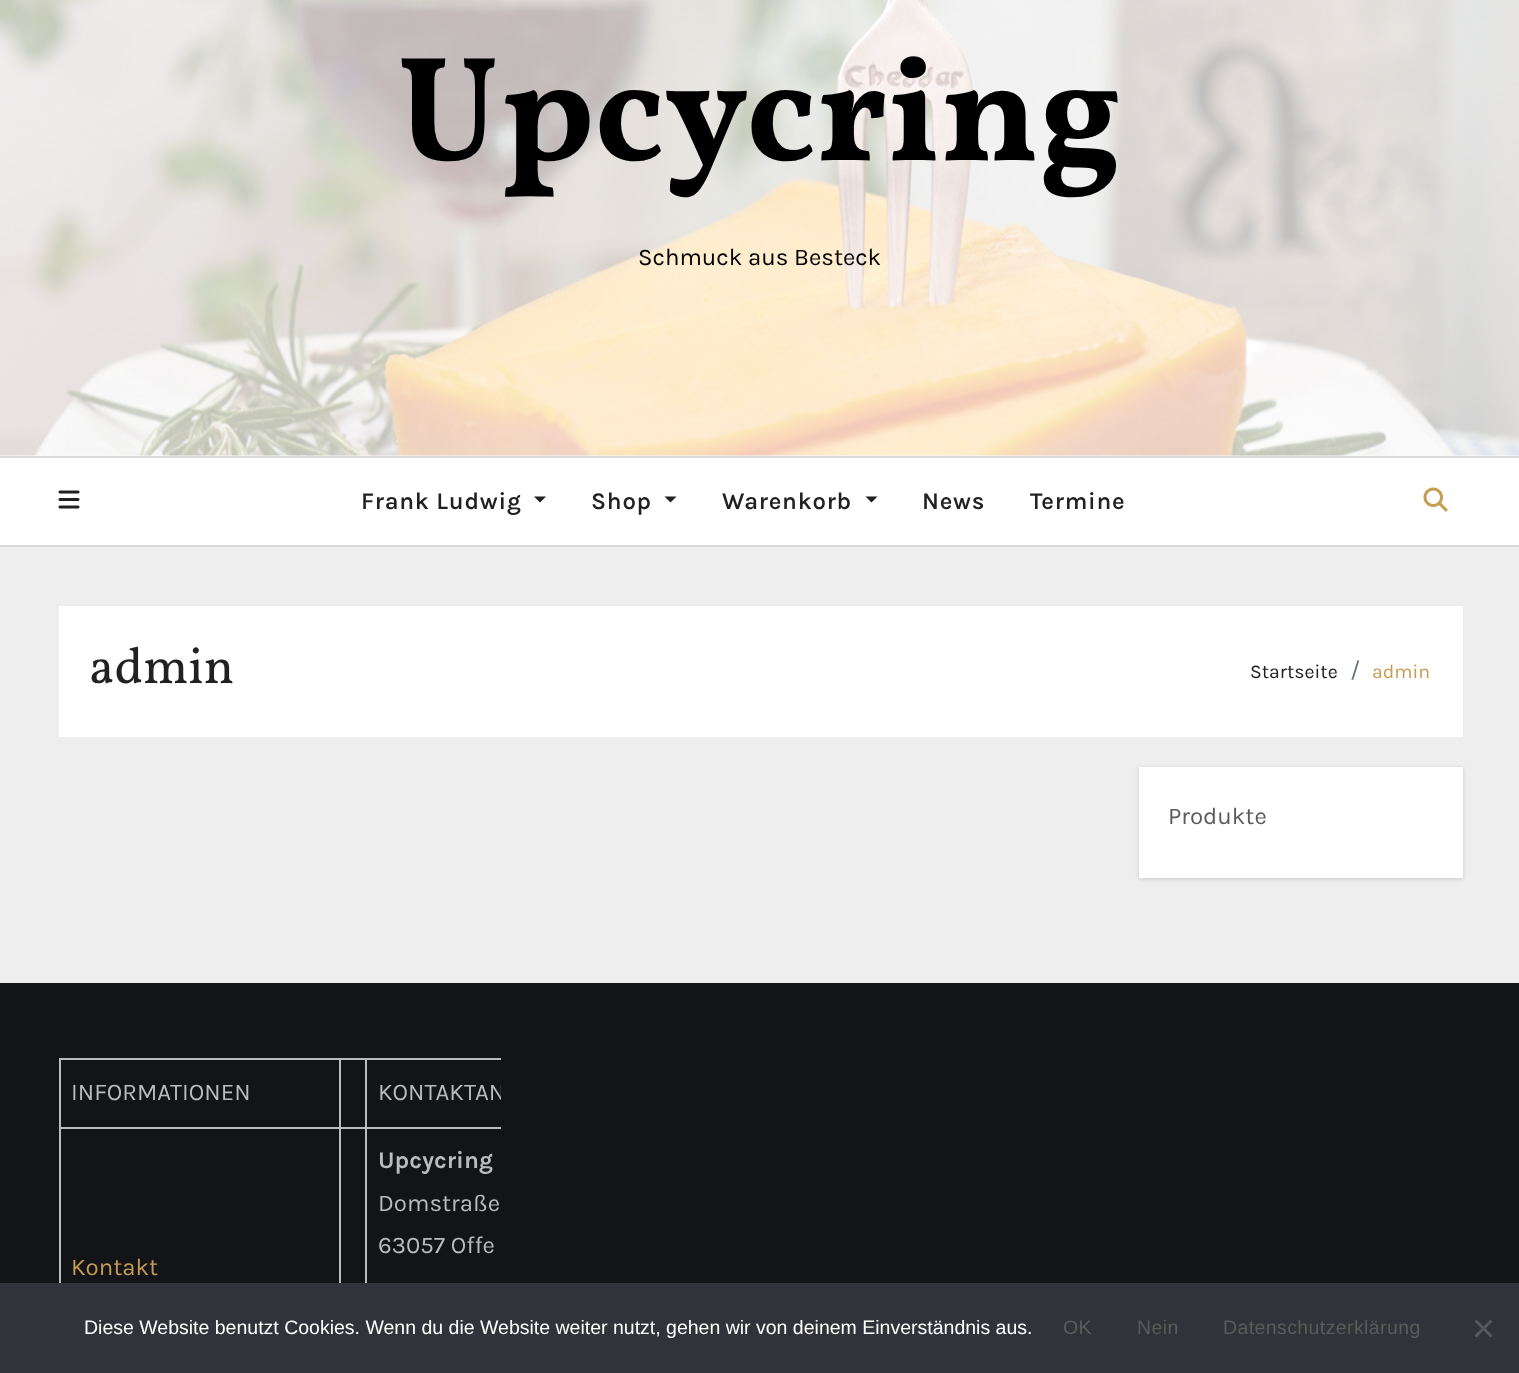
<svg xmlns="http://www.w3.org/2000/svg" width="1519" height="1373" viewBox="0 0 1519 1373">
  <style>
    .t1 { font: bold 150px Vollkorn; fill: #000; }
    .t2 { font: 24px Karla; fill: #000; }
    .t3 { font: 600 24px Karla; letter-spacing: 0.75px; fill: #212121; }
    .t4 { font: 51px Vollkorn; fill: #212121; }
    .t5 { font: 19.5px Karla; fill: #212121; }
    .t6 { font: 24px Karla; fill: #6c757d; }
    .t7 { font: 19.5px Karla; fill: #c69c53; }
    .t8 { font: 24px Karla; fill: #5b5b5b; }
    .t9 { font: 24px Karla; fill: #bbb; }
    .t10 { font: bold 24px Karla; fill: #bbb; }
    .t11 { font: 24px Karla; fill: #c69c53; }
    .t12 { font: 19.5px Liberation Sans; fill: #fff; }
    .t13 { font: 19.5px Liberation Sans; letter-spacing: 0.4px; fill: #5b5b5b; }
  </style>
  <defs>
    <clipPath id="clip1"><rect x="59" y="1058" width="442" height="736"/></clipPath>
  </defs>
  <rect width="100%" height="100%" fill="#eee"/>
  <rect x="0" y="546" width="1519" height="1" fill="#d4d4d4"/>
  <rect x="0" y="455" width="1519" height="1" fill="#fafafa"/>
  <image x="0" y="0" width="1519" height="456" href="images/1.png"/>
  <text x="397" y="160" class="t1">Upcycring</text>
  <text x="638" y="265" class="t2">Schmuck aus Besteck</text>
  <rect x="0" y="458" width="1519" height="87" fill="#fff"/>
  <rect x="0" y="545" width="1519" height="1" fill="#dcdcdc"/>
  <rect x="0" y="456" width="1519" height="2" fill="#dcdcdc"/>
  <image x="58" y="490" width="22" height="19" href="images/2.png"/>
  <text x="361" y="509" class="t3">Frank Ludwig</text>
  <path d="M534 496.5H546L540 502.5Z" fill="#212121"/>
  <text x="591" y="509" class="t3">Shop</text>
  <path d="M664.5 496.5H676.5L670.5 502.5Z" fill="#212121"/>
  <text x="722" y="509" class="t3">Warenkorb</text>
  <path d="M865.5 496.5H877.5L871.5 502.5Z" fill="#212121"/>
  <text x="922" y="509" class="t3">News</text>
  <text x="1030" y="509" class="t3">Termine</text>
  <image x="1423" y="487" width="25" height="25" href="images/3.png"/>
  <rect x="59" y="606" width="1404" height="131" fill="#fff"/>
  <text x="89" y="683" class="t4">admin</text>
  <text x="1250" y="678" class="t5">Startseite</text>
  <text x="1350" y="678" class="t6">/</text>
  <text x="1372" y="678" class="t7">admin</text>
  <rect x="1139" y="768" width="324" height="111" fill="#00000026" filter="blur(2px)"/>
  <rect x="1139" y="767" width="324" height="111" fill="#fff"/>
  <text x="1168" y="824" class="t8">Produkte</text>
  <rect x="0" y="983" width="1519" height="300" fill="#121418"/>
  <rect x="365" y="1058" width="136" height="2" fill="#bbb"/>
  <rect x="365" y="1127" width="136" height="2" fill="#bbb"/>
  <rect x="365" y="1127" width="2" height="156" fill="#bbb"/>
  <rect x="339" y="1127" width="27" height="2" fill="#bbb"/>
  <rect x="365" y="1058" width="2" height="70" fill="#bbb"/>
  <rect x="339" y="1058" width="27" height="2" fill="#bbb"/>
  <rect x="339" y="1127" width="2" height="156" fill="#bbb"/>
  <rect x="59" y="1127" width="282" height="2" fill="#bbb"/>
  <rect x="339" y="1058" width="2" height="70" fill="#bbb"/>
  <rect x="59" y="1058" width="282" height="2" fill="#bbb"/>
  <rect x="59" y="1127" width="2" height="156" fill="#bbb"/>
  <rect x="59" y="1058" width="2" height="70" fill="#bbb"/>
  <text x="71" y="1100" class="t9">INFORMATIONEN</text>
  <g clip-path="url(#clip1)">
    <text x="378" y="1100" class="t9">KONTAKTAN</text>
  </g>
  <text x="378" y="1168" class="t10">Upcycring</text>
  <text x="378" y="1211" class="t9">Domstraße</text>
  <text x="378" y="1253" class="t9">63057 Offe</text>
  <text x="71" y="1275" class="t11">Kontakt</text>
  <rect x="0" y="1283" width="1519" height="90" fill="#32323a"/>
  <text x="84" y="1334" class="t12">Diese Website benutzt Cookies. Wenn du die Website weiter nutzt, gehen wir von deinem Einverständnis aus.</text>
  <text x="1063" y="1334" class="t13">OK</text>
  <text x="1137" y="1334" class="t13">Nein</text>
  <text x="1223" y="1334" class="t13">Datenschutzerklärung</text>
  <path d="M1490.5 1319.5L1492.5 1321.5L1476.5 1337.5L1474.5 1335.5Z" fill="#59595d"/>
  <path d="M1474.5 1321.5L1476.5 1319.5L1492.5 1335.5L1490.5 1337.5Z" fill="#59595d"/>
</svg>
